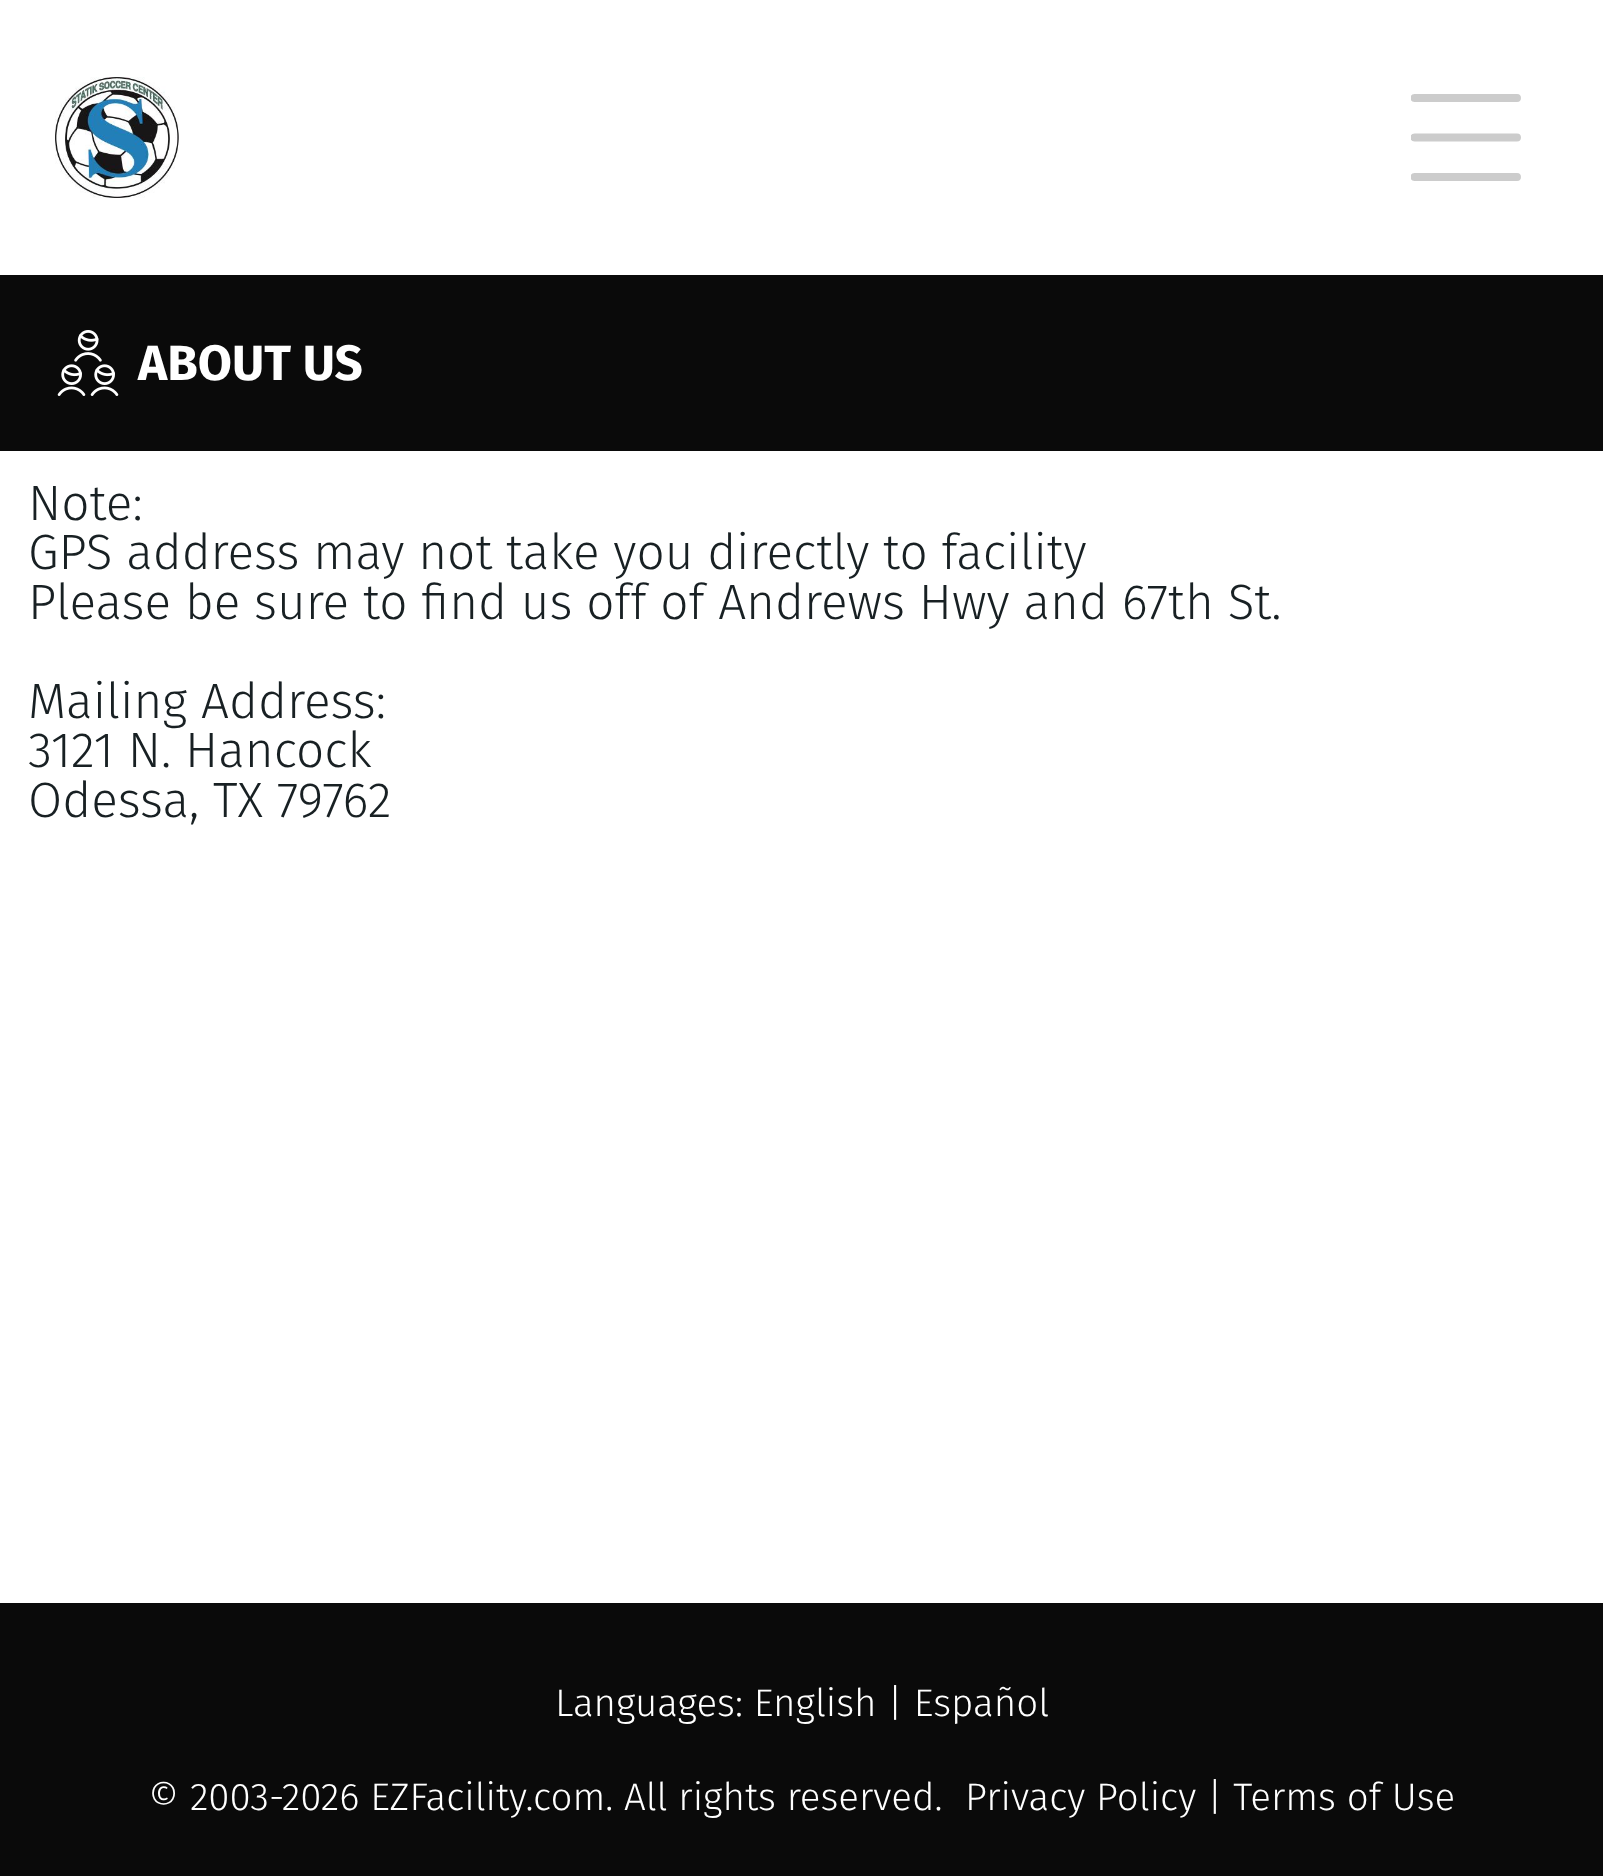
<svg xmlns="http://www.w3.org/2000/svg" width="1603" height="1876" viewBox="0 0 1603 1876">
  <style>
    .t1 { font: bold 49.5px Fira Sans; fill: #fff; }
    .t2 { font: 300 49.5px Fira Sans; fill: #182023; }
    .t3 { font: 300 38.5px Fira Sans; fill: #fff; }
  </style>
  <defs>
    <clipPath id="clip1"><rect x="1411" y="83" width="110" height="110"/></clipPath>
  </defs>
  <rect width="100%" height="100%" fill="#fff"/>
  <image x="55" y="77" width="124" height="121" href="images/1.png"/>
  <g clip-path="url(#clip1)">
    <path d="M1517 98H1414.5" fill="none" stroke="#ccc" stroke-width="7.9" stroke-linecap="round" stroke-linejoin="round"/>
    <path d="M1517 137.5H1414.5" fill="none" stroke="#ccc" stroke-width="7.9" stroke-linecap="round" stroke-linejoin="round"/>
    <path d="M1517 177H1414.5" fill="none" stroke="#ccc" stroke-width="7.9" stroke-linecap="round" stroke-linejoin="round"/>
  </g>
  <rect x="0" y="275" width="1603" height="176" fill="#0a0a0a"/>
  <image x="57" y="330" width="62" height="66" href="images/2.png"/>
  <text x="138" y="380" class="t1">ABOUT US</text>
  <text x="28" y="520" class="t2">Note:</text>
  <text x="28" y="569" class="t2">GPS address may not take you directly to facility</text>
  <text x="28" y="619" class="t2">Please be sure to find us off of Andrews Hwy and 67th St.</text>
  <text x="28" y="718" class="t2">Mailing Address:</text>
  <text x="28" y="767" class="t2">3121 N. Hancock</text>
  <text x="28" y="817" class="t2">Odessa, TX 79762</text>
  <rect x="0" y="1603" width="1603" height="273" fill="#0a0a0a"/>
  <text x="555" y="1716" class="t3">Languages: English | Español</text>
  <text x="148" y="1810" class="t3">© 2003-2026 EZFacility.com. All rights reserved.</text>
  <text x="965" y="1810" class="t3">Privacy Policy | Terms of Use</text>
</svg>
